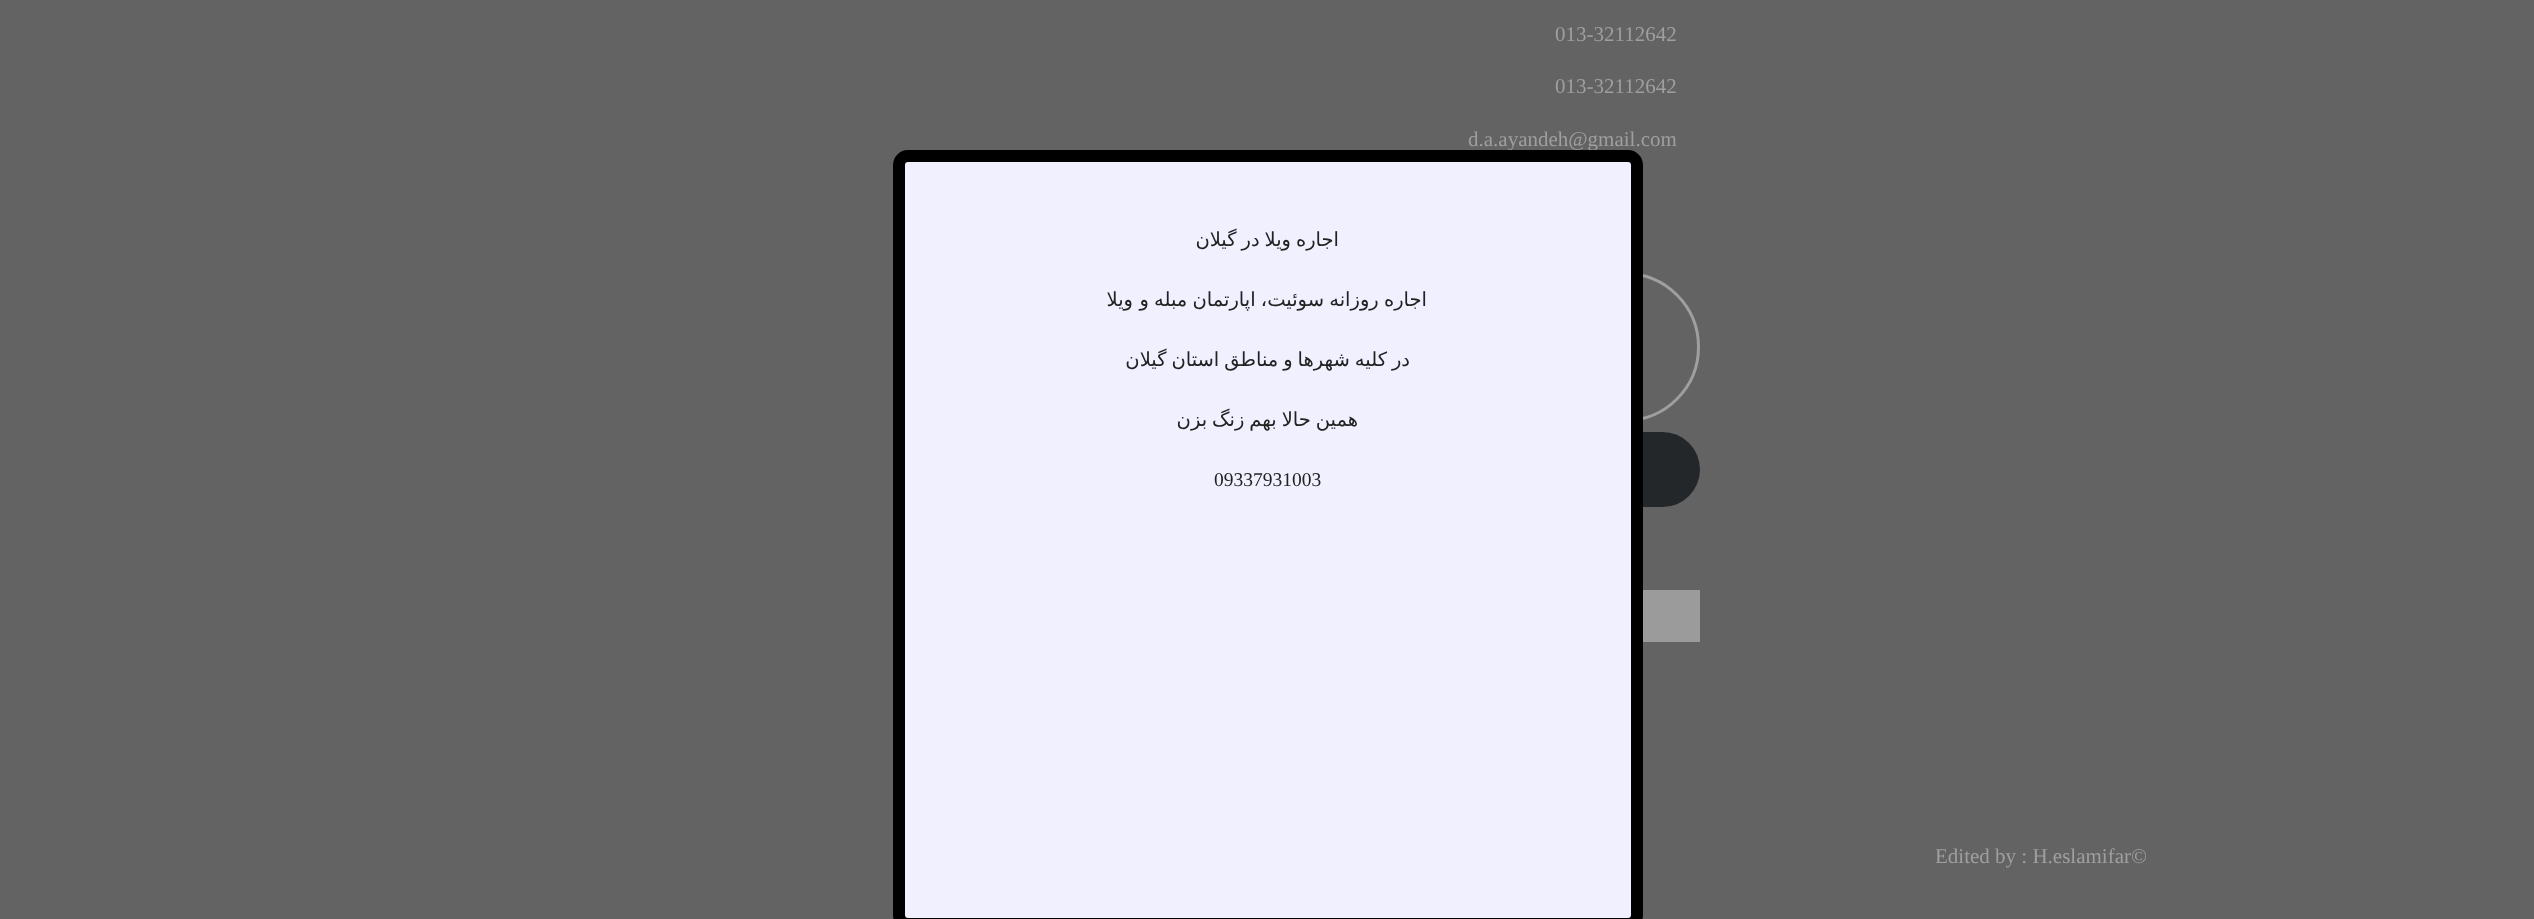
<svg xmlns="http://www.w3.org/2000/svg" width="2534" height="919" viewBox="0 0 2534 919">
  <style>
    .t1 { font: 21px Liberation Serif; fill: #9f9f9f; }
    .t2 { font: 19.5px DejaVu Sans; direction: rtl; fill: #222; }
    .t3 { font: 19.5px Liberation Serif; fill: #222; }
  </style>
  <rect width="100%" height="100%" fill="#636363"/>
  <text x="1555" y="41" class="t1">013-32112642</text>
  <text x="1555" y="93" class="t1">013-32112642</text>
  <text x="1468" y="146" class="t1">d.a.ayandeh@gmail.com</text>
  <rect x="1291.5" y="273.5" width="407" height="147" rx="73.5" fill="none" stroke="#9f9f9f" stroke-width="3"/>
  <rect x="1548" y="432" width="152" height="75" rx="37.5" fill="#24272a"/>
  <rect x="1643" y="590" width="57" height="52" fill="#9b9b9b"/>
  <text x="1935" y="863" class="t1">Edited by : H.eslamifar©</text>
  <rect x="899" y="156" width="738" height="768" rx="9" fill="#f0f0ff" stroke="#000" stroke-width="12"/>
  <text x="1339" y="246" word-spacing="-1.25" class="t2">اجاره ویلا در گیلان</text>
  <text x="1427" y="306" word-spacing="-1" class="t2">اجاره روزانه سوئیت، اپارتمان مبله و</text>
  <text x="1133" y="306" class="t2">ویلا</text>
  <text x="1410" y="366" word-spacing="-1.25" class="t2">در کلیه شهرها و مناطق استان گیلان</text>
  <text x="1358" y="426" word-spacing="-1.25" class="t2">همین حالا بهم زنگ بزن</text>
  <text x="1214" y="486" class="t3">09337931003</text>
</svg>
